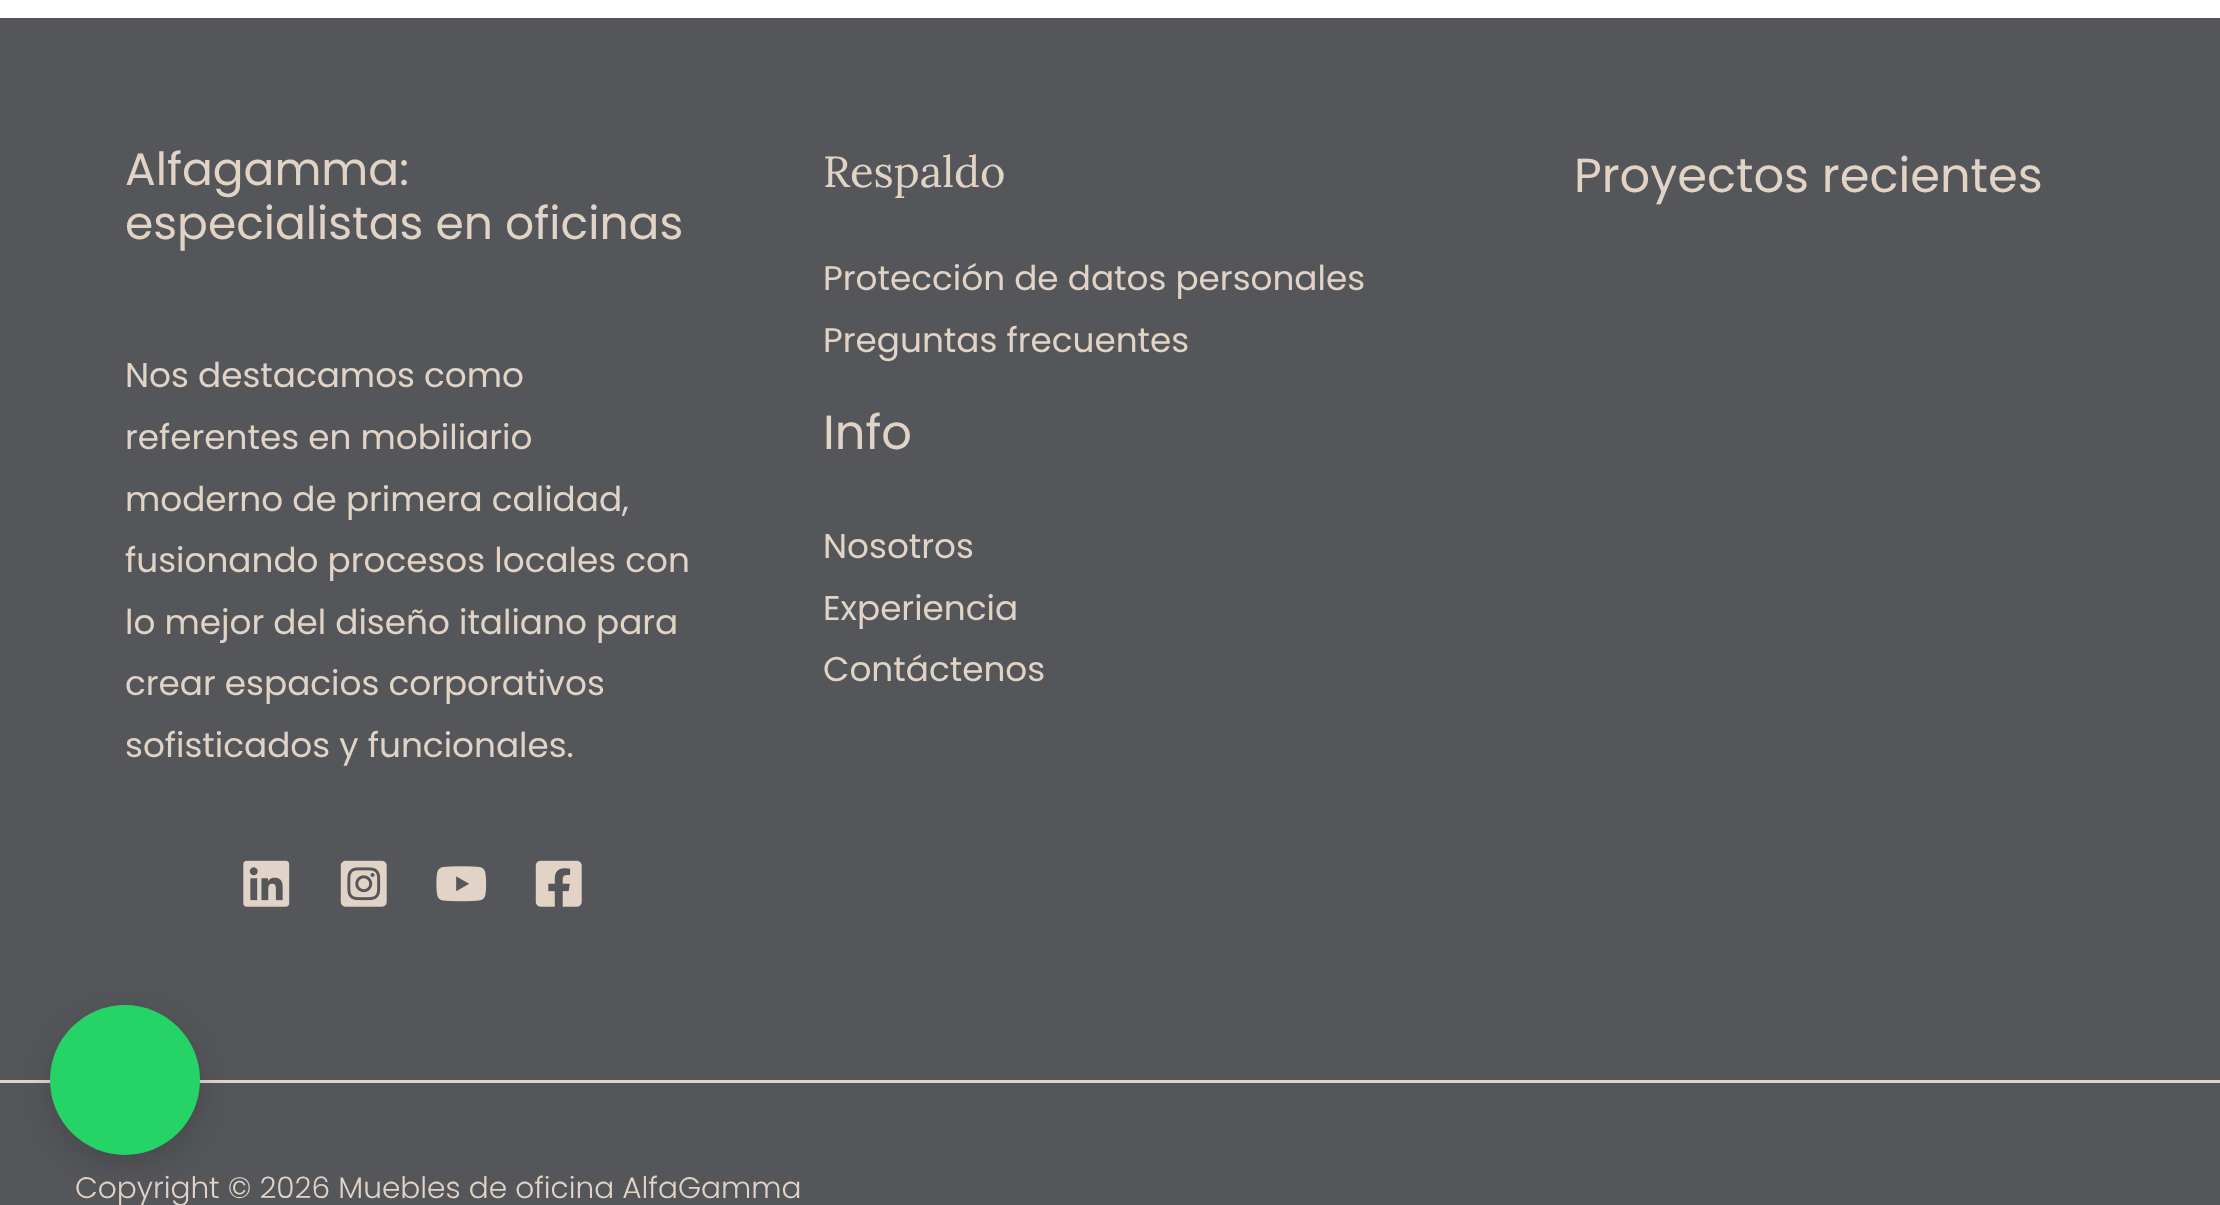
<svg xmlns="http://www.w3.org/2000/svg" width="2220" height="1205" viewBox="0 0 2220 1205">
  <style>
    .t1 { font: 45.6px Poppins; fill: #e1d4c7; }
    .t2 { font: 34.25px Poppins; fill: #e1d4c7; }
    .t3 { font: 43.5px Lora; fill: #e1d4c7; }
    .t4 { font: 47.9px Poppins; fill: #e1d4c7; }
    .t5 { font: 300 29.6px Poppins; fill: #e1d4c7; }
  </style>
  <rect width="100%" height="100%" fill="#fff"/>
  <rect x="0" y="18" width="2220" height="1062" fill="#54565a"/>
  <text x="125" y="185" class="t1">Alfagamma:</text>
  <text x="125" y="239" class="t1">especialistas en oficinas</text>
  <text x="125" y="387" class="t2">Nos destacamos como</text>
  <text x="125" y="449" class="t2">referentes en mobiliario</text>
  <text x="125" y="511" class="t2">moderno de primera calidad,</text>
  <text x="125" y="572" class="t2">fusionando procesos locales con</text>
  <text x="125" y="634" class="t2">lo mejor del diseño italiano para</text>
  <text x="125" y="695" class="t2">crear espacios corporativos</text>
  <text x="125" y="757" class="t2">sofisticados y funcionales.</text>
  <image x="243" y="860" width="47" height="47" href="images/1.png"/>
  <image x="340" y="860" width="47" height="47" href="images/2.png"/>
  <image x="436" y="866" width="51" height="36" href="images/3.png"/>
  <image x="535" y="860" width="47" height="47" href="images/4.png"/>
  <text x="823" y="187" class="t3">Respaldo</text>
  <text x="823" y="290" class="t2">Protección de datos personales</text>
  <text x="823" y="352" class="t2">Preguntas frecuentes</text>
  <text x="823" y="449" class="t4">Info</text>
  <text x="823" y="558" class="t2">Nosotros</text>
  <text x="823" y="620" class="t2">Experiencia</text>
  <text x="823" y="681" class="t2">Contáctenos</text>
  <text x="1574" y="192" class="t4">Proyectos recientes</text>
  <rect x="0" y="1083" width="2220" height="122" fill="#54565a"/>
  <rect x="0" y="1080" width="2220" height="3" fill="#e1d4c7"/>
  <text x="75" y="1198" class="t5">Copyright © 2026 Muebles de oficina AlfaGamma</text>
  <rect x="50" y="1015" width="150" height="150" rx="75" fill="#00000026" filter="blur(15px)"/>
  <circle cx="125" cy="1080" r="75" fill="#25d366"/>
</svg>
